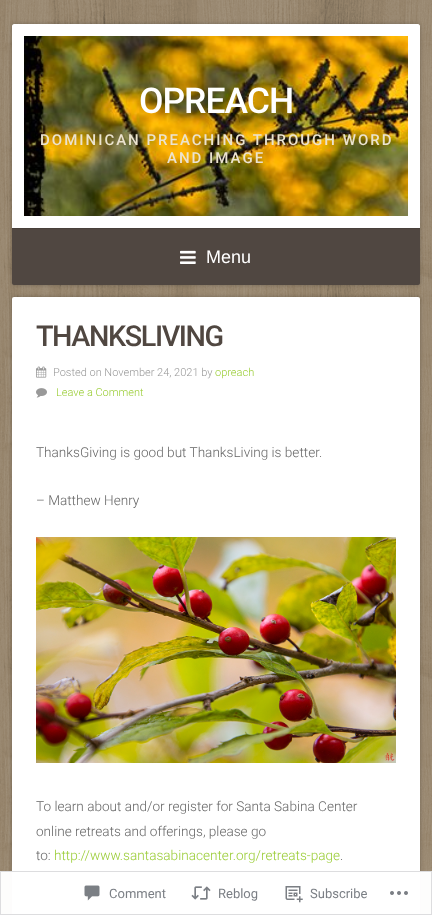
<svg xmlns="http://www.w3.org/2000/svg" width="432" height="915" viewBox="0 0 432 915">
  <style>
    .t1 { font: 500 35.5px Roboto; letter-spacing: -1px; fill: #fff; }
    .t2 { font: 500 15px Roboto; letter-spacing: 2px; fill: #ebe3cf; }
    .t3 { font: 18px Liberation Sans; fill: #fff; }
    .t4 { font: 500 28.75px Roboto; letter-spacing: -1.4px; fill: #504741; }
    .t5 { font: 300 11px Roboto; fill: #999; }
    .t6 { font: 300 11px Roboto; fill: #9c3; }
    .t7 { font: 300 13.6px Roboto; fill: #666; }
    .t8 { font: 300 13.6px Roboto; fill: #9c3; }
    .t9 { font: 13px Roboto; fill: #7b7f85; }
  </style>
  <rect width="100%" height="100%" fill="#fff"/>
  <image x="0" y="0" width="432" height="915" href="images/1.png"/>
  <rect x="12" y="24" width="408" height="261" rx="2" fill="#0000003d" filter="blur(2px)"/>
  <path d="M14 24H418C419 24 420 25 420 26V228H12V26C12 25 13 24 14 24Z" fill="#fff"/>
  <image x="24" y="36" width="384" height="180" href="images/2.png"/>
  <text x="139" y="113" class="t1">OPREACH</text>
  <text x="40" y="145" class="t2">DOMINICAN PREACHING THROUGH WORD</text>
  <text x="167" y="163" class="t2">AND IMAGE</text>
  <path d="M12 228H420V283C420 284 419 285 418 285H14C13 285 12 284 12 283Z" fill="#504741"/>
  <rect x="12" y="228" width="408" height="1" fill="#48403b"/>
  <image x="180" y="250" width="16" height="14" href="images/3.png"/>
  <text x="206" y="263" class="t3">Menu</text>
  <rect x="12" y="297" width="408" height="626" rx="2" fill="#0000003d" filter="blur(2px)"/>
  <rect x="12" y="297" width="408" height="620" rx="2" fill="#fff"/>
  <text x="36" y="346" class="t4">THANKSLIVING</text>
  <image x="36" y="366" width="11" height="12" href="images/4.png"/>
  <text x="53" y="376" class="t5">Posted on November 24, 2021 by</text>
  <text x="215" y="376" class="t6">opreach</text>
  <image x="36" y="388" width="11" height="10" href="images/5.png"/>
  <text x="56" y="396" class="t6">Leave a Comment</text>
  <text x="36" y="457" class="t7">ThanksGiving is good but ThanksLiving is better.</text>
  <text x="36" y="505" class="t7">– Matthew Henry</text>
  <image x="36" y="537" width="360" height="226" href="images/6.png"/>
  <text x="36" y="811" class="t7">To learn about and/or register for Santa Sabina Center</text>
  <text x="36" y="836" class="t7">online retreats and offerings, please go</text>
  <text x="36" y="860" class="t7">to:</text>
  <text x="54" y="860" class="t8">http://www.santasabinacenter.org/retreats-page</text>
  <text x="340" y="860" class="t7">.</text>
  <rect x="36" y="898" width="53" height="1" fill="#dcdcde"/>
  <rect x="0" y="871" width="432" height="44" fill="#fffffffa"/>
  <rect x="0.5" y="871.5" width="431" height="43" fill="none" stroke="#dcdcdefa"/>
  <image x="84" y="885" width="16" height="16" href="images/7.png"/>
  <text x="109" y="898" class="t9">Comment</text>
  <image x="191" y="886" width="20" height="14" href="images/8.png"/>
  <text x="218" y="898" class="t9">Reblog</text>
  <image x="285" y="886" width="18" height="17" href="images/9.png"/>
  <text x="310" y="898" class="t9">Subscribe</text>
  <image x="390" y="891" width="18" height="4" href="images/10.png"/>
</svg>
